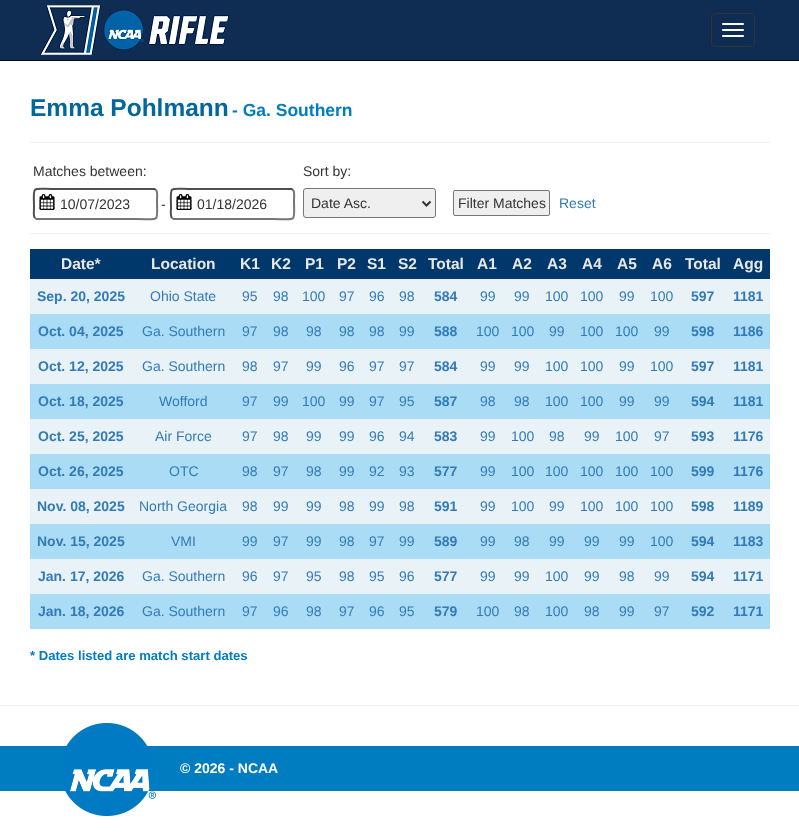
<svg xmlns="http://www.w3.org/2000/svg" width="799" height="837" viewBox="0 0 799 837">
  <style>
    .t1 { font: bold 24.5px Liberation Sans; fill: #02679d; }
    .t2 { font: bold 17.5px Liberation Sans; fill: #007dc1; }
    .t3 { font: 14px Liberation Sans; fill: #333; }
    .t4 { font: 14px Liberation Sans; fill: #337ab7; }
    .t5 { font: bold 15.5px Liberation Sans; fill: #e8e8e8; }
    .t6 { font: bold 14px Liberation Sans; fill: #337ab7; }
    .t7 { font: bold 13.1px Liberation Sans; fill: #007dc1; }
    .t8 { font: bold 14px Liberation Sans; fill: #fff; }
  </style>
  <rect width="100%" height="100%" fill="#fff"/>
  <rect x="0" y="0" width="799" height="60" fill="#0f2c52"/>
  <rect x="0" y="60" width="799" height="1" fill="#080808"/>
  <image x="40" y="5" width="189" height="50" href="images/1.png"/>
  <rect x="711.5" y="13.5" width="43" height="33" rx="3.5" fill="none" stroke="#333"/>
  <rect x="722" y="23" width="22" height="2" rx="1" fill="#fff"/>
  <rect x="722" y="29" width="22" height="2" rx="1" fill="#fff"/>
  <rect x="722" y="35" width="22" height="2" rx="1" fill="#fff"/>
  <text x="30" y="116" class="t1">Emma Pohlmann</text>
  <text x="232" y="116" class="t2">- Ga. Southern</text>
  <rect x="30" y="142" width="740" height="1" fill="#eee"/>
  <text x="33" y="176" class="t3">Matches between:</text>
  <text x="303" y="176" class="t3">Sort by:</text>
  <image x="39" y="194" width="16" height="16" href="images/2.png"/>
  <path d="M156 190C158 192 157 197.5 157 200C157 224 161 219 134.5 219H36.5L35 218" fill="none" stroke="#767676" stroke-width="2"/>
  <path d="M35 218C33 216 34 210.5 34 208C34 184 30 189 56.5 189H154.5L156 190" fill="none" stroke="#4f4f4f" stroke-width="2"/>
  <text x="60" y="209" class="t3">10/07/2023</text>
  <text x="161" y="209" class="t3">-</text>
  <image x="176" y="194" width="16" height="16" href="images/2.png"/>
  <path d="M293 190C295 192 294 197.5 294 200C294 224 298 219 271.5 219H173.5L172 218" fill="none" stroke="#767676" stroke-width="2"/>
  <path d="M172 218C170 216 171 210.5 171 208C171 184 167 189 193.5 189H291.5L293 190" fill="none" stroke="#4f4f4f" stroke-width="2"/>
  <text x="197" y="209" class="t3">01/18/2026</text>
  <rect x="303.5" y="188.5" width="132" height="29" rx="2.5" fill="#efefef" stroke="#767676"/>
  <path d="M422.5 201.5L426.5 205.5L430.5 201.5" fill="none" stroke="#333" stroke-width="2"/>
  <text x="311" y="208" class="t3">Date Asc.</text>
  <rect x="453.5" y="190.5" width="96" height="25" rx="1.5" fill="#efefef" stroke="#767676"/>
  <text x="458" y="208" class="t3">Filter Matches</text>
  <text x="559" y="208" class="t4">Reset</text>
  <rect x="30" y="233" width="740" height="1" fill="#eee"/>
  <rect x="30" y="249" width="740" height="30" fill="#00386b"/>
  <text x="61" y="269" class="t5">Date*</text>
  <text x="151" y="269" class="t5">Location</text>
  <text x="240" y="269" class="t5">K1</text>
  <text x="271" y="269" class="t5">K2</text>
  <text x="305" y="269" class="t5">P1</text>
  <text x="337" y="269" class="t5">P2</text>
  <text x="367" y="269" class="t5">S1</text>
  <text x="398" y="269" class="t5">S2</text>
  <text x="428" y="269" class="t5">Total</text>
  <text x="477" y="269" class="t5">A1</text>
  <text x="512" y="269" class="t5">A2</text>
  <text x="547" y="269" class="t5">A3</text>
  <text x="582" y="269" class="t5">A4</text>
  <text x="617" y="269" class="t5">A5</text>
  <text x="652" y="269" class="t5">A6</text>
  <text x="685" y="269" class="t5">Total</text>
  <text x="733" y="269" class="t5">Agg</text>
  <rect x="30" y="279" width="740" height="35" fill="#e8f2f7"/>
  <text x="37" y="301" class="t6">Sep. 20, 2025</text>
  <text x="150" y="301" class="t4">Ohio State</text>
  <text x="242" y="301" class="t4">95</text>
  <text x="273" y="301" class="t4">98</text>
  <text x="302" y="301" class="t4">100</text>
  <text x="339" y="301" class="t4">97</text>
  <text x="369" y="301" class="t4">96</text>
  <text x="399" y="301" class="t4">98</text>
  <text x="434" y="301" class="t6">584</text>
  <text x="480" y="301" class="t4">99</text>
  <text x="514" y="301" class="t4">99</text>
  <text x="545" y="301" class="t4">100</text>
  <text x="580" y="301" class="t4">100</text>
  <text x="619" y="301" class="t4">99</text>
  <text x="650" y="301" class="t4">100</text>
  <text x="691" y="301" class="t6">597</text>
  <text x="733" y="301" class="t6">1181</text>
  <rect x="30" y="314" width="740" height="35" fill="#aaddf5"/>
  <text x="38" y="336" class="t6">Oct. 04, 2025</text>
  <text x="142" y="336" class="t4">Ga. Southern</text>
  <text x="242" y="336" class="t4">97</text>
  <text x="273" y="336" class="t4">98</text>
  <text x="306" y="336" class="t4">98</text>
  <text x="339" y="336" class="t4">98</text>
  <text x="369" y="336" class="t4">98</text>
  <text x="399" y="336" class="t4">99</text>
  <text x="434" y="336" class="t6">588</text>
  <text x="476" y="336" class="t4">100</text>
  <text x="511" y="336" class="t4">100</text>
  <text x="549" y="336" class="t4">99</text>
  <text x="580" y="336" class="t4">100</text>
  <text x="615" y="336" class="t4">100</text>
  <text x="654" y="336" class="t4">99</text>
  <text x="691" y="336" class="t6">598</text>
  <text x="733" y="336" class="t6">1186</text>
  <rect x="30" y="349" width="740" height="35" fill="#e8f2f7"/>
  <text x="38" y="371" class="t6">Oct. 12, 2025</text>
  <text x="142" y="371" class="t4">Ga. Southern</text>
  <text x="242" y="371" class="t4">98</text>
  <text x="273" y="371" class="t4">97</text>
  <text x="306" y="371" class="t4">99</text>
  <text x="339" y="371" class="t4">96</text>
  <text x="369" y="371" class="t4">97</text>
  <text x="399" y="371" class="t4">97</text>
  <text x="434" y="371" class="t6">584</text>
  <text x="480" y="371" class="t4">99</text>
  <text x="514" y="371" class="t4">99</text>
  <text x="545" y="371" class="t4">100</text>
  <text x="580" y="371" class="t4">100</text>
  <text x="619" y="371" class="t4">99</text>
  <text x="650" y="371" class="t4">100</text>
  <text x="691" y="371" class="t6">597</text>
  <text x="733" y="371" class="t6">1181</text>
  <rect x="30" y="384" width="740" height="35" fill="#aaddf5"/>
  <text x="38" y="406" class="t6">Oct. 18, 2025</text>
  <text x="159" y="406" class="t4">Wofford</text>
  <text x="242" y="406" class="t4">97</text>
  <text x="273" y="406" class="t4">99</text>
  <text x="302" y="406" class="t4">100</text>
  <text x="339" y="406" class="t4">99</text>
  <text x="369" y="406" class="t4">97</text>
  <text x="399" y="406" class="t4">95</text>
  <text x="434" y="406" class="t6">587</text>
  <text x="480" y="406" class="t4">98</text>
  <text x="514" y="406" class="t4">98</text>
  <text x="545" y="406" class="t4">100</text>
  <text x="580" y="406" class="t4">100</text>
  <text x="619" y="406" class="t4">99</text>
  <text x="654" y="406" class="t4">99</text>
  <text x="691" y="406" class="t6">594</text>
  <text x="733" y="406" class="t6">1181</text>
  <rect x="30" y="419" width="740" height="35" fill="#e8f2f7"/>
  <text x="38" y="441" class="t6">Oct. 25, 2025</text>
  <text x="155" y="441" class="t4">Air Force</text>
  <text x="242" y="441" class="t4">97</text>
  <text x="273" y="441" class="t4">98</text>
  <text x="306" y="441" class="t4">99</text>
  <text x="339" y="441" class="t4">99</text>
  <text x="369" y="441" class="t4">96</text>
  <text x="399" y="441" class="t4">94</text>
  <text x="434" y="441" class="t6">583</text>
  <text x="480" y="441" class="t4">99</text>
  <text x="511" y="441" class="t4">100</text>
  <text x="549" y="441" class="t4">98</text>
  <text x="584" y="441" class="t4">99</text>
  <text x="615" y="441" class="t4">100</text>
  <text x="654" y="441" class="t4">97</text>
  <text x="691" y="441" class="t6">593</text>
  <text x="733" y="441" class="t6">1176</text>
  <rect x="30" y="454" width="740" height="35" fill="#aaddf5"/>
  <text x="38" y="476" class="t6">Oct. 26, 2025</text>
  <text x="169" y="476" class="t4">OTC</text>
  <text x="242" y="476" class="t4">98</text>
  <text x="273" y="476" class="t4">97</text>
  <text x="306" y="476" class="t4">98</text>
  <text x="339" y="476" class="t4">99</text>
  <text x="369" y="476" class="t4">92</text>
  <text x="399" y="476" class="t4">93</text>
  <text x="434" y="476" class="t6">577</text>
  <text x="480" y="476" class="t4">99</text>
  <text x="511" y="476" class="t4">100</text>
  <text x="545" y="476" class="t4">100</text>
  <text x="580" y="476" class="t4">100</text>
  <text x="615" y="476" class="t4">100</text>
  <text x="650" y="476" class="t4">100</text>
  <text x="691" y="476" class="t6">599</text>
  <text x="733" y="476" class="t6">1176</text>
  <rect x="30" y="489" width="740" height="35" fill="#e8f2f7"/>
  <text x="37" y="511" class="t6">Nov. 08, 2025</text>
  <text x="139" y="511" class="t4">North Georgia</text>
  <text x="242" y="511" class="t4">98</text>
  <text x="273" y="511" class="t4">99</text>
  <text x="306" y="511" class="t4">99</text>
  <text x="339" y="511" class="t4">98</text>
  <text x="369" y="511" class="t4">99</text>
  <text x="399" y="511" class="t4">98</text>
  <text x="434" y="511" class="t6">591</text>
  <text x="480" y="511" class="t4">99</text>
  <text x="511" y="511" class="t4">100</text>
  <text x="549" y="511" class="t4">99</text>
  <text x="580" y="511" class="t4">100</text>
  <text x="615" y="511" class="t4">100</text>
  <text x="650" y="511" class="t4">100</text>
  <text x="691" y="511" class="t6">598</text>
  <text x="733" y="511" class="t6">1189</text>
  <rect x="30" y="524" width="740" height="35" fill="#aaddf5"/>
  <text x="37" y="546" class="t6">Nov. 15, 2025</text>
  <text x="171" y="546" class="t4">VMI</text>
  <text x="242" y="546" class="t4">99</text>
  <text x="273" y="546" class="t4">97</text>
  <text x="306" y="546" class="t4">99</text>
  <text x="339" y="546" class="t4">98</text>
  <text x="369" y="546" class="t4">97</text>
  <text x="399" y="546" class="t4">99</text>
  <text x="434" y="546" class="t6">589</text>
  <text x="480" y="546" class="t4">99</text>
  <text x="514" y="546" class="t4">98</text>
  <text x="549" y="546" class="t4">99</text>
  <text x="584" y="546" class="t4">99</text>
  <text x="619" y="546" class="t4">99</text>
  <text x="650" y="546" class="t4">100</text>
  <text x="691" y="546" class="t6">594</text>
  <text x="733" y="546" class="t6">1183</text>
  <rect x="30" y="559" width="740" height="35" fill="#e8f2f7"/>
  <text x="38" y="581" class="t6">Jan. 17, 2026</text>
  <text x="142" y="581" class="t4">Ga. Southern</text>
  <text x="242" y="581" class="t4">96</text>
  <text x="273" y="581" class="t4">97</text>
  <text x="306" y="581" class="t4">95</text>
  <text x="339" y="581" class="t4">98</text>
  <text x="369" y="581" class="t4">95</text>
  <text x="399" y="581" class="t4">96</text>
  <text x="434" y="581" class="t6">577</text>
  <text x="480" y="581" class="t4">99</text>
  <text x="514" y="581" class="t4">99</text>
  <text x="545" y="581" class="t4">100</text>
  <text x="584" y="581" class="t4">99</text>
  <text x="619" y="581" class="t4">98</text>
  <text x="654" y="581" class="t4">99</text>
  <text x="691" y="581" class="t6">594</text>
  <text x="733" y="581" class="t6">1171</text>
  <rect x="30" y="594" width="740" height="35" fill="#aaddf5"/>
  <text x="38" y="616" class="t6">Jan. 18, 2026</text>
  <text x="142" y="616" class="t4">Ga. Southern</text>
  <text x="242" y="616" class="t4">97</text>
  <text x="273" y="616" class="t4">96</text>
  <text x="306" y="616" class="t4">98</text>
  <text x="339" y="616" class="t4">97</text>
  <text x="369" y="616" class="t4">96</text>
  <text x="399" y="616" class="t4">95</text>
  <text x="434" y="616" class="t6">579</text>
  <text x="476" y="616" class="t4">100</text>
  <text x="514" y="616" class="t4">98</text>
  <text x="545" y="616" class="t4">100</text>
  <text x="584" y="616" class="t4">98</text>
  <text x="619" y="616" class="t4">99</text>
  <text x="654" y="616" class="t4">97</text>
  <text x="691" y="616" class="t6">592</text>
  <text x="733" y="616" class="t6">1171</text>
  <text x="30" y="660" class="t7">* Dates listed are match start dates</text>
  <rect x="0" y="705" width="799" height="1" fill="#eee"/>
  <rect x="0" y="746" width="799" height="45" fill="#007dc1"/>
  <image x="65" y="723" width="91" height="93" href="images/3.png"/>
  <text x="180" y="773" class="t8">© 2026 - NCAA</text>
</svg>
